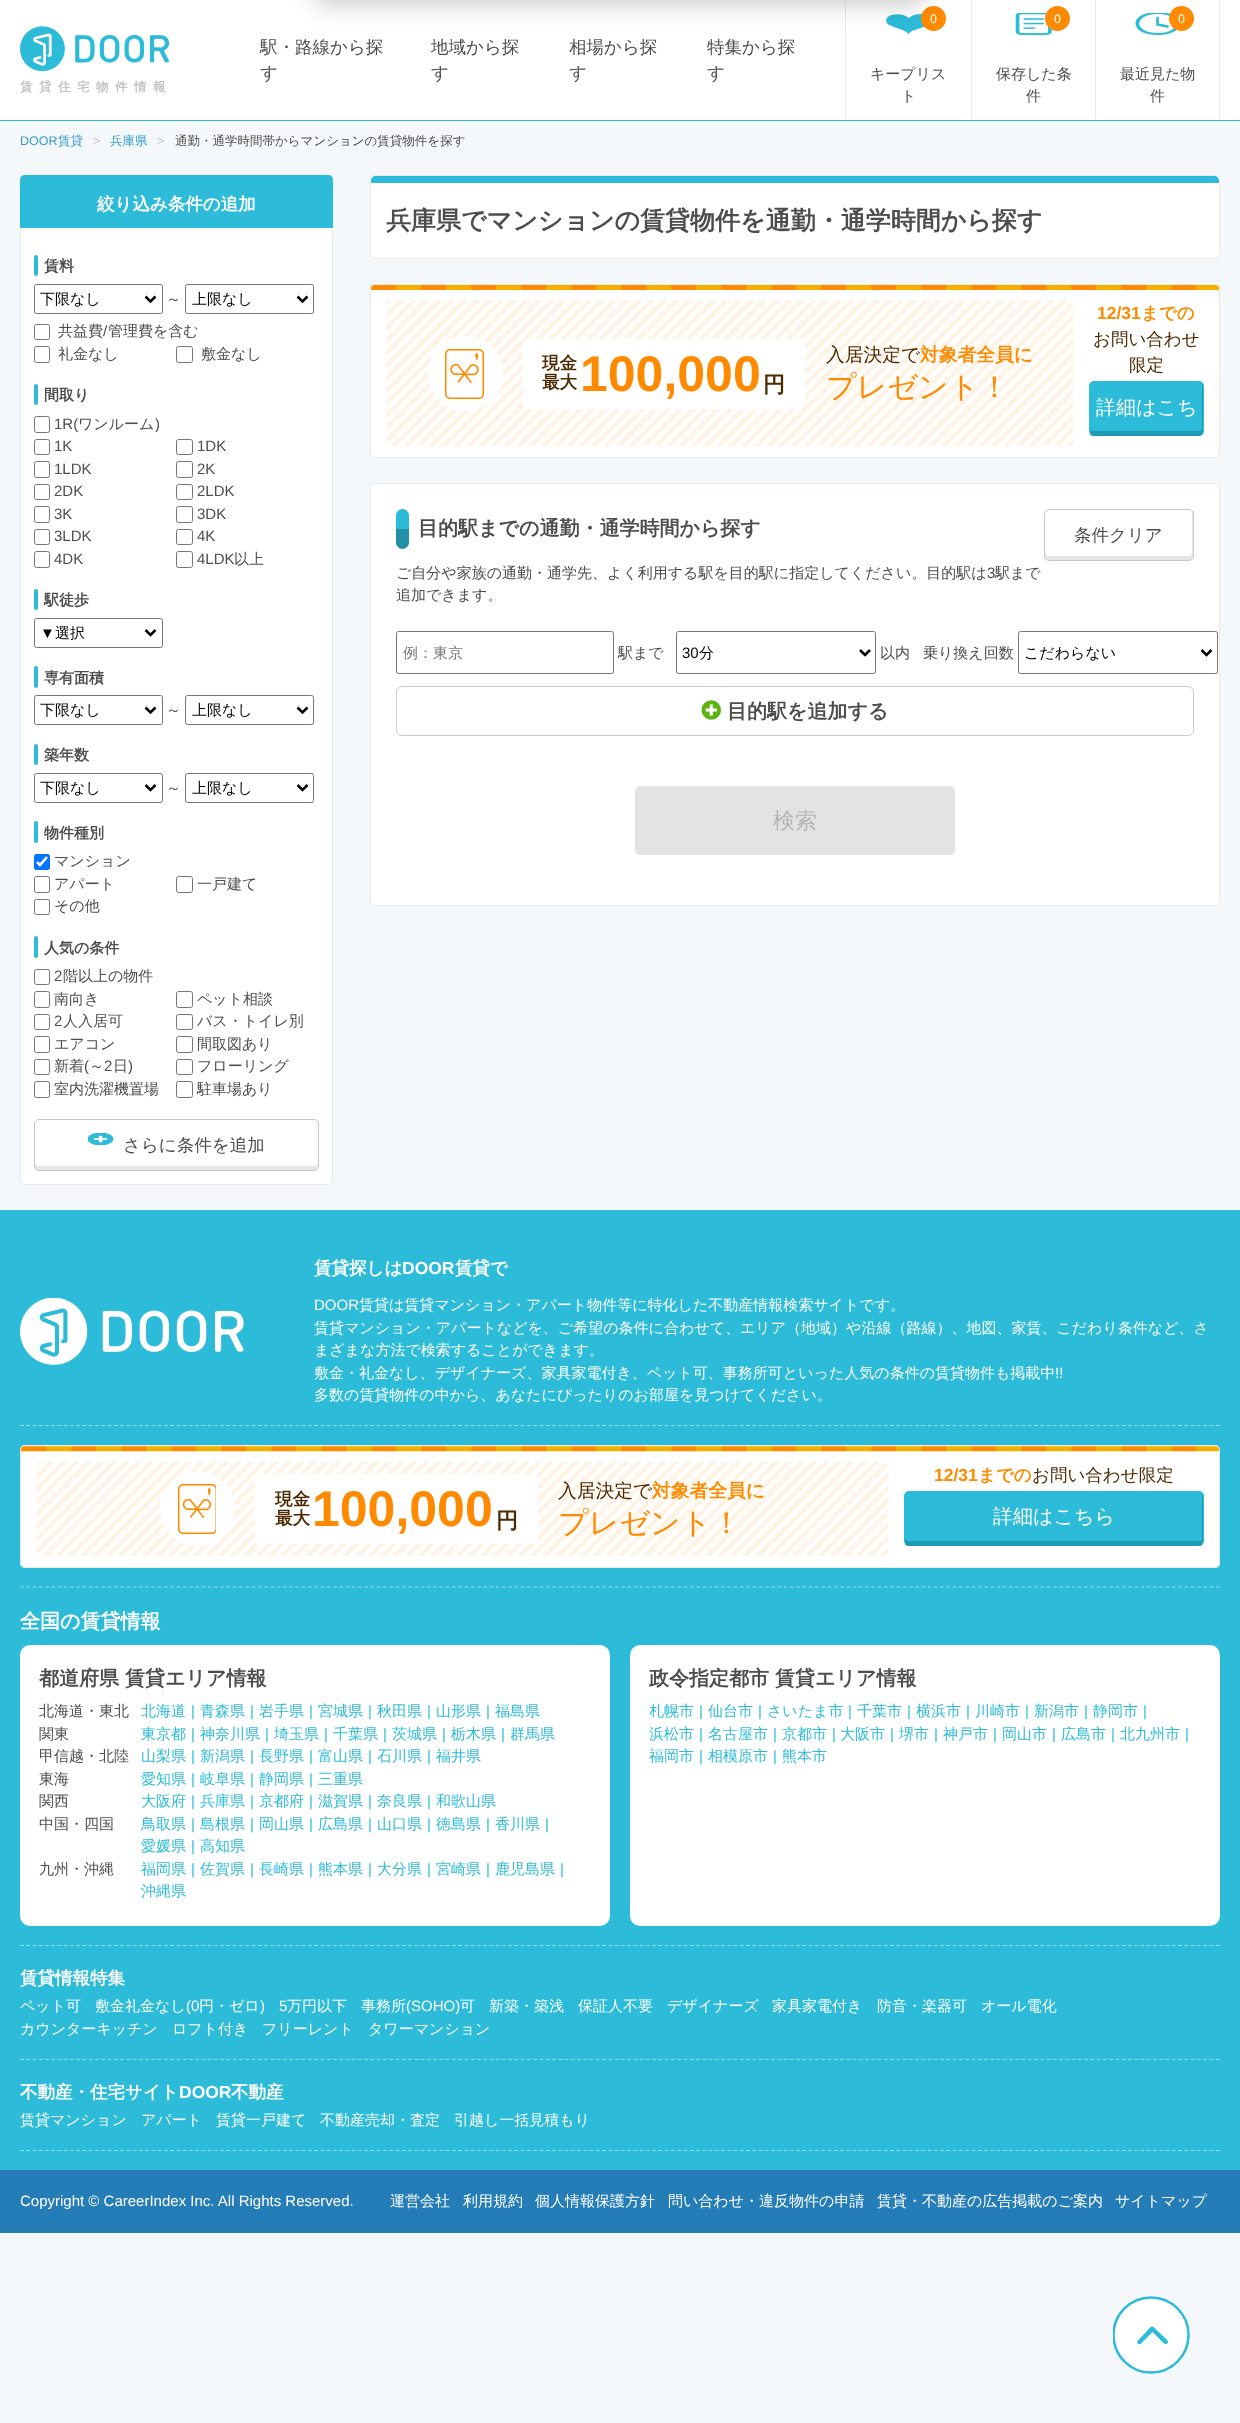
<svg xmlns="http://www.w3.org/2000/svg" width="1240" height="2423" viewBox="0 0 1240 2423">
  <style>
    .t1 { font: bold 12.5px WenQuanYi Zen Hei; letter-spacing: 6.5px; fill: #c2c2c2; }
    .t2 { font: 500 17.5px WenQuanYi Zen Hei; fill: #4d4d4d; }
    .t3 { font: 12.5px Liberation Sans; fill: #fff; }
    .t4 { font: 500 15px WenQuanYi Zen Hei; fill: #4d4d4d; }
    .t5 { font: 12.5px Liberation Sans; fill: #329cd1; }
    .t6 { font: 500 12.5px WenQuanYi Zen Hei; fill: #329cd1; }
    .t7 { font: 12.5px Liberation Sans; fill: #c2c2c2; }
    .t8 { font: 500 12.5px WenQuanYi Zen Hei; fill: #4d4d4d; }
    .t9 { font: bold 17.5px WenQuanYi Zen Hei; fill: #fff; }
    .t10 { font: bold 15px WenQuanYi Zen Hei; fill: #4d4d4d; }
    .t11 { font: 500 15px WenQuanYi Zen Hei; fill: #000; }
    .t12 { font: 15px Liberation Sans; fill: #4d4d4d; }
    .t13 { font: 15px Liberation Sans; fill: #000; }
    .t14 { font: bold 25px WenQuanYi Zen Hei; fill: #4d4d4d; }
    .t15 { font: bold 17.5px WenQuanYi Zen Hei; fill: #4d2900; }
    .t16 { font: bold 50px Liberation Sans; fill: #ff8a00; }
    .t17 { font: bold 22px WenQuanYi Zen Hei; fill: #4d2900; }
    .t18 { font: 500 18.75px WenQuanYi Zen Hei; fill: #4d2900; }
    .t19 { font: bold 18.75px WenQuanYi Zen Hei; fill: #ff8a00; }
    .t20 { font: 500 30px WenQuanYi Zen Hei; fill: #ff8a00; }
    .t21 { font: bold 17.5px Liberation Sans; fill: #ff8a00; }
    .t22 { font: bold 17.5px WenQuanYi Zen Hei; fill: #ff8a00; }
    .t23 { font: 500 17.5px WenQuanYi Zen Hei; fill: #4d2900; }
    .t24 { font: 500 20px WenQuanYi Zen Hei; fill: #fff; }
    .t25 { font: bold 20px WenQuanYi Zen Hei; fill: #4d4d4d; }
    .t26 { font: 500 15px WenQuanYi Zen Hei; fill: #757575; }
    .t27 { font: 500 22px WenQuanYi Zen Hei; fill: #b5b5b5; }
    .t28 { font: bold 17.5px Liberation Sans; fill: #fff; }
    .t29 { font: 15px Liberation Sans; fill: #fff; }
    .t30 { font: 500 15px WenQuanYi Zen Hei; fill: #fff; }
    .t31 { font: bold 20px WenQuanYi Zen Hei; fill: #fff; }
    .t32 { font: 500 15px WenQuanYi Zen Hei; fill: #2cbcd9; }
    .t33 { font: 15px Liberation Sans; fill: #2cbcd9; }
  </style>
  <defs>
    <clipPath id="clip1"><rect x="1135" y="13" width="45" height="22"/></clipPath>
    <clipPath id="clip2"><rect x="1113" y="2296" width="77" height="78"/></clipPath>
  </defs>
  <rect width="100%" height="100%" fill="#f5f8fa"/>
  <rect x="0" y="0" width="1240" height="120" fill="#fff"/>
  <rect x="845" y="0" width="1" height="120" fill="#ebeae7"/>
  <path d="M920 14C913 14 909 18 909 18C902 11 882 14 887 23C889 27 908 30 908 34L912 31C916 29 937 25 930 17C928 14 923 14 920 14Z" fill="#2cbcd9"/>
  <circle cx="933.5" cy="18.5" r="12.5" fill="#ff8a00"/>
  <rect x="316" y="-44" width="608" height="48" rx="6" fill="#00000038" filter="blur(12.5px)"/>
  <rect x="0" y="120" width="1240" height="1" fill="#2cbcd9"/>
  <image x="20" y="26" width="150" height="46" href="images/1.png"/>
  <text x="20" y="91" class="t1">賃貸住宅物件情報</text>
  <text x="260" y="53" class="t2">駅・路線から探</text>
  <text x="260" y="79" class="t2">す</text>
  <text x="431" y="53" class="t2">地域から探</text>
  <text x="431" y="79" class="t2">す</text>
  <text x="569" y="53" class="t2">相場から探</text>
  <text x="569" y="79" class="t2">す</text>
  <text x="707" y="53" class="t2">特集から探</text>
  <text x="707" y="79" class="t2">す</text>
  <rect x="971" y="0" width="1" height="120" fill="#ebeae7"/>
  <text x="930" y="23" class="t3">0</text>
  <text x="870" y="79" class="t4">キープリス</text>
  <text x="901" y="101" class="t4">ト</text>
  <rect x="1095" y="0" width="1" height="120" fill="#ebeae7"/>
  <image x="1015" y="13" width="37" height="22" href="images/2.png"/>
  <circle cx="1057.5" cy="18.5" r="12.5" fill="#ff8a00"/>
  <text x="1054" y="23" class="t3">0</text>
  <text x="996" y="79" class="t4">保存した条</text>
  <text x="1026" y="101" class="t4">件</text>
  <rect x="1219" y="0" width="1" height="120" fill="#ebeae7"/>
  <g clip-path="url(#clip1)">
    <path d="M1158 14C1182 14 1182 33 1158 33C1133 33 1133 14 1158 14M1158 12C1128 12 1128 35 1158 35C1187 35 1187 12 1158 12Z" fill="#2cbcd9"/>
  </g>
  <circle cx="1181.5" cy="18.5" r="12.5" fill="#ff8a00"/>
  <text x="1178" y="23" class="t3">0</text>
  <path d="M1157.5 18V24.5L1167.5 26.5" fill="none" stroke="#2cbcd9" stroke-width="2.7" stroke-linecap="round" stroke-linejoin="round"/>
  <text x="1120" y="79" class="t4">最近見た物</text>
  <text x="1150" y="101" class="t4">件</text>
  <text x="20" y="145" class="t5">DOOR</text>
  <text x="58" y="145" class="t6">賃貸</text>
  <text x="93" y="145" class="t7">&gt;</text>
  <text x="110" y="145" class="t6">兵庫県</text>
  <text x="157" y="145" class="t7">&gt;</text>
  <text x="175" y="145" class="t8">通勤・通学時間帯からマンションの賃貸物件を探す</text>
  <rect x="20.5" y="175.5" width="312" height="1009" rx="4.5" fill="#fff" stroke="#ebeae7"/>
  <path d="M25 175H328C331 175 333 177 333 180V228H20V180C20 177 22 175 25 175Z" fill="#2cbcd9"/>
  <text x="97" y="210" class="t9">絞り込み条件の追加</text>
  <rect x="34" y="255" width="4" height="21" rx="2" fill="#2cbcd9"/>
  <text x="44" y="271" class="t10">賃料</text>
  <rect x="34.5" y="284.5" width="128" height="29" rx="2" fill="none" stroke="#767676"/>
  <path d="M145.5 296.5L150.5 301.5L155.5 296.5" fill="none" stroke="#000" stroke-width="2.5"/>
  <text x="40" y="304" class="t11">下限なし</text>
  <text x="166" y="304" class="t4">～</text>
  <rect x="185.5" y="284.5" width="128" height="29" rx="2" fill="none" stroke="#767676"/>
  <path d="M297.5 296.5L302.5 301.5L307.5 296.5" fill="none" stroke="#000" stroke-width="2.5"/>
  <text x="192" y="304" class="t11">上限なし</text>
  <rect x="34.5" y="324.5" width="15" height="15" rx="2" fill="none" stroke="#767676"/>
  <text x="58" y="336" class="t4">共益費</text>
  <text x="103" y="336" class="t12">/</text>
  <text x="108" y="336" class="t4">管理費を含む</text>
  <rect x="34.5" y="346.5" width="15" height="16" rx="2" fill="none" stroke="#767676"/>
  <text x="58" y="359" class="t4">礼金なし</text>
  <rect x="176.5" y="346.5" width="16" height="16" rx="2" fill="none" stroke="#767676"/>
  <text x="201" y="359" class="t4">敷金なし</text>
  <rect x="34" y="384" width="4" height="21" rx="2" fill="#2cbcd9"/>
  <text x="44" y="400" class="t10">間取り</text>
  <rect x="34.5" y="416.5" width="15" height="16" rx="2" fill="none" stroke="#767676"/>
  <text x="54" y="429" class="t12">1R(</text>
  <text x="78" y="429" class="t4">ワンルーム</text>
  <text x="155" y="429" class="t12">)</text>
  <rect x="34.5" y="439.5" width="15" height="15" rx="2" fill="none" stroke="#767676"/>
  <text x="54" y="451" class="t12">1K</text>
  <rect x="176.5" y="439.5" width="16" height="15" rx="2" fill="none" stroke="#767676"/>
  <text x="197" y="451" class="t12">1DK</text>
  <rect x="34.5" y="461.5" width="15" height="16" rx="2" fill="none" stroke="#767676"/>
  <text x="54" y="474" class="t12">1LDK</text>
  <rect x="176.5" y="461.5" width="16" height="16" rx="2" fill="none" stroke="#767676"/>
  <text x="197" y="474" class="t12">2K</text>
  <rect x="34.5" y="484.5" width="15" height="15" rx="2" fill="none" stroke="#767676"/>
  <text x="54" y="496" class="t12">2DK</text>
  <rect x="176.5" y="484.5" width="16" height="15" rx="2" fill="none" stroke="#767676"/>
  <text x="197" y="496" class="t12">2LDK</text>
  <rect x="34.5" y="506.5" width="15" height="16" rx="2" fill="none" stroke="#767676"/>
  <text x="54" y="519" class="t12">3K</text>
  <rect x="176.5" y="506.5" width="16" height="16" rx="2" fill="none" stroke="#767676"/>
  <text x="197" y="519" class="t12">3DK</text>
  <rect x="34.5" y="529.5" width="15" height="15" rx="2" fill="none" stroke="#767676"/>
  <text x="54" y="541" class="t12">3LDK</text>
  <rect x="176.5" y="529.5" width="16" height="15" rx="2" fill="none" stroke="#767676"/>
  <text x="197" y="541" class="t12">4K</text>
  <rect x="34.5" y="551.5" width="15" height="16" rx="2" fill="none" stroke="#767676"/>
  <text x="54" y="564" class="t12">4DK</text>
  <rect x="176.5" y="551.5" width="16" height="16" rx="2" fill="none" stroke="#767676"/>
  <text x="197" y="564" class="t12">4LDK</text>
  <text x="234" y="564" class="t4">以上</text>
  <rect x="34" y="589" width="4" height="21" rx="2" fill="#2cbcd9"/>
  <text x="44" y="605" class="t10">駅徒歩</text>
  <rect x="34.5" y="618.5" width="128" height="29" rx="2" fill="none" stroke="#767676"/>
  <path d="M145.5 630L150.5 635L155.5 630" fill="none" stroke="#000" stroke-width="2.5"/>
  <text x="40" y="638" class="t13">▼</text>
  <text x="55" y="638" class="t11">選択</text>
  <rect x="34" y="666" width="4" height="22" rx="2" fill="#2cbcd9"/>
  <text x="44" y="683" class="t10">専有面積</text>
  <rect x="34.5" y="695.5" width="128" height="29" rx="2" fill="none" stroke="#767676"/>
  <path d="M145.5 707.5L150.5 712.5L155.5 707.5" fill="none" stroke="#000" stroke-width="2.5"/>
  <text x="40" y="715" class="t11">下限なし</text>
  <text x="166" y="715" class="t4">～</text>
  <rect x="185.5" y="695.5" width="128" height="29" rx="2" fill="none" stroke="#767676"/>
  <path d="M297.5 707.5L302.5 712.5L307.5 707.5" fill="none" stroke="#000" stroke-width="2.5"/>
  <text x="192" y="715" class="t11">上限なし</text>
  <rect x="34" y="744" width="4" height="21" rx="2" fill="#2cbcd9"/>
  <text x="44" y="760" class="t10">築年数</text>
  <rect x="34.5" y="773.5" width="128" height="29" rx="2" fill="none" stroke="#767676"/>
  <path d="M145.5 785L150.5 790L155.5 785" fill="none" stroke="#000" stroke-width="2.5"/>
  <text x="40" y="793" class="t11">下限なし</text>
  <text x="166" y="793" class="t4">～</text>
  <rect x="185.5" y="773.5" width="128" height="29" rx="2" fill="none" stroke="#767676"/>
  <path d="M297.5 785L302.5 790L307.5 785" fill="none" stroke="#000" stroke-width="2.5"/>
  <text x="192" y="793" class="t11">上限なし</text>
  <rect x="34" y="821" width="4" height="22" rx="2" fill="#2cbcd9"/>
  <text x="44" y="838" class="t10">物件種別</text>
  <rect x="34" y="854" width="16" height="16" rx="2.5" fill="#0075ff"/>
  <path d="M37 862L40 865L47 857" fill="none" stroke="#fff" stroke-width="2.6"/>
  <text x="54" y="866" class="t4">マンション</text>
  <rect x="34.5" y="876.5" width="15" height="16" rx="2" fill="none" stroke="#767676"/>
  <text x="54" y="889" class="t4">アパート</text>
  <rect x="176.5" y="876.5" width="16" height="16" rx="2" fill="none" stroke="#767676"/>
  <text x="197" y="889" class="t4">一戸建て</text>
  <rect x="34.5" y="899.5" width="15" height="15" rx="2" fill="none" stroke="#767676"/>
  <text x="54" y="911" class="t4">その他</text>
  <rect x="34" y="936" width="4" height="22" rx="2" fill="#2cbcd9"/>
  <text x="44" y="953" class="t10">人気の条件</text>
  <rect x="34.5" y="969.5" width="15" height="15" rx="2" fill="none" stroke="#767676"/>
  <text x="54" y="981" class="t12">2</text>
  <text x="63" y="981" class="t4">階以上の物件</text>
  <rect x="34.5" y="991.5" width="15" height="16" rx="2" fill="none" stroke="#767676"/>
  <text x="54" y="1004" class="t4">南向き</text>
  <rect x="176.5" y="991.5" width="16" height="16" rx="2" fill="none" stroke="#767676"/>
  <text x="197" y="1004" class="t4">ペット相談</text>
  <rect x="34.5" y="1014.5" width="15" height="15" rx="2" fill="none" stroke="#767676"/>
  <text x="54" y="1026" class="t12">2</text>
  <text x="63" y="1026" class="t4">人入居可</text>
  <rect x="176.5" y="1014.5" width="16" height="15" rx="2" fill="none" stroke="#767676"/>
  <text x="197" y="1026" class="t4">バス・トイレ別</text>
  <rect x="34.5" y="1036.5" width="15" height="16" rx="2" fill="none" stroke="#767676"/>
  <text x="54" y="1049" class="t4">エアコン</text>
  <rect x="176.5" y="1036.5" width="16" height="16" rx="2" fill="none" stroke="#767676"/>
  <text x="197" y="1049" class="t4">間取図あり</text>
  <rect x="34.5" y="1059.5" width="15" height="15" rx="2" fill="none" stroke="#767676"/>
  <text x="54" y="1071" class="t4">新着</text>
  <text x="84" y="1071" class="t12">(</text>
  <text x="89" y="1071" class="t4">～</text>
  <text x="104" y="1071" class="t12">2</text>
  <text x="113" y="1071" class="t4">日</text>
  <text x="128" y="1071" class="t12">)</text>
  <rect x="176.5" y="1059.5" width="16" height="15" rx="2" fill="none" stroke="#767676"/>
  <text x="197" y="1071" class="t4">フローリング</text>
  <rect x="34.5" y="1081.5" width="15" height="16" rx="2" fill="none" stroke="#767676"/>
  <text x="54" y="1094" class="t4">室内洗濯機置場</text>
  <rect x="176.5" y="1081.5" width="16" height="16" rx="2" fill="none" stroke="#767676"/>
  <text x="197" y="1094" class="t4">駐車場あり</text>
  <path d="M35 1162V1166C35 1168 37 1170 39 1170H314C316 1170 318 1168 318 1166V1162C318 1165 316 1166 314 1166H39C37 1166 35 1165 35 1162Z" fill="#e6e6e6"/>
  <rect x="34.5" y="1119.5" width="284" height="51" rx="4.5" fill="none" stroke="#c7c7c7"/>
  <image x="88" y="1133" width="26" height="12" href="images/3.png"/>
  <text x="123" y="1151" class="t2">さらに条件を追加</text>
  <rect x="370.5" y="175.5" width="849" height="83" rx="4.5" fill="#fff" stroke="#ebeae7"/>
  <path d="M376 176H1214C1217 176 1219 178 1219 181V183H371V181C371 178 373 176 376 176Z" fill="#2cbcd9"/>
  <text x="386" y="229" class="t14">兵庫県でマンションの賃貸物件を通勤・通学時間から探す</text>
  <rect x="370" y="284" width="850" height="174" rx="5" fill="#fff"/>
  <image x="370" y="285" width="850" height="5" href="images/4.png"/>
  <rect x="370.5" y="284.5" width="849" height="173" rx="4.5" fill="none" stroke="#ebeae7"/>
  <image x="386" y="300" width="688" height="146" href="images/5.png"/>
  <circle cx="465.5" cy="373.5" r="37.5" fill="#fff"/>
  <image x="445" y="349" width="39" height="50" href="images/6.png"/>
  <rect x="523" y="339" width="282" height="70" rx="5" fill="#fff"/>
  <text x="542" y="369" class="t15">現金</text>
  <text x="542" y="388" class="t15">最大</text>
  <text x="580" y="391" class="t16">100,000</text>
  <text x="763" y="392" class="t17">円</text>
  <text x="826" y="361" class="t18">入居決定で</text>
  <text x="920" y="361" class="t19">対象者全員に</text>
  <text x="826" y="397" class="t20">プレゼント！</text>
  <text x="1097" y="319" class="t21">12/31</text>
  <text x="1141" y="319" class="t22">までの</text>
  <text x="1093" y="345" class="t23">お問い合わせ</text>
  <text x="1129" y="371" class="t23">限定</text>
  <rect x="1089" y="381" width="115" height="55" rx="5" fill="#2cbcd9"/>
  <path d="M1090 428V431C1090 433 1092 435 1094 435H1199C1201 435 1203 433 1203 431V387C1203 386 1203 385 1202 384V428C1202 430 1201 431 1199 431H1094C1092 431 1090 430 1090 428Z" fill="#2099b2"/>
  <path d="M1202 434.5L1199 435.5H1093.5L1090.5 434.5" fill="none" stroke="#2099b2" stroke-width="1.2"/>
  <text x="1096" y="414" class="t24">詳細はこち</text>
  <rect x="370.5" y="483.5" width="849" height="422" rx="4.5" fill="#fff" stroke="#ebeae7"/>
  <path d="M402.5 509C406 509 409 512 409 515.5V529H396V515.5C396 512 399 509 402.5 509Z" fill="#2cbcd9"/>
  <path d="M396 529H409V542.5C409 546 406 549 402.5 549C399 549 396 546 396 542.5Z" fill="#2190a6"/>
  <text x="418" y="535" class="t25">目的駅までの通勤・通学時間から探す</text>
  <path d="M1045 552V556C1045 558 1047 560 1049 560H1189C1191 560 1193 558 1193 556V514C1193 513 1193 512 1192 511V552C1192 555 1191 556 1189 556H1049C1047 556 1045 555 1045 552Z" fill="#e6e6e6"/>
  <rect x="1044.5" y="509.5" width="149" height="51" rx="4.5" fill="none" stroke="#c7c7c7"/>
  <text x="1074" y="541" class="t2">条件クリア</text>
  <text x="396" y="578" class="t4">ご自分や家族の通勤・通学先、よく利用する駅を目的駅に指定してください。目的駅は</text>
  <text x="987" y="578" class="t12">3</text>
  <text x="995" y="578" class="t4">駅まで</text>
  <text x="396" y="600" class="t4">追加できます。</text>
  <rect x="396.5" y="631.5" width="217" height="42" rx="2" fill="none" stroke="#767676"/>
  <text x="403" y="658" class="t26">例：東京</text>
  <text x="618" y="658" class="t4">駅まで</text>
  <rect x="676.5" y="631.5" width="199" height="42" rx="2" fill="none" stroke="#767676"/>
  <path d="M860 650L865 655L870 650" fill="none" stroke="#000" stroke-width="2.5"/>
  <text x="682" y="658" class="t13">30</text>
  <text x="699" y="658" class="t11">分</text>
  <text x="880" y="658" class="t4">以内</text>
  <text x="923" y="658" class="t4">乗り換え回数</text>
  <rect x="1018.5" y="631.5" width="199" height="42" rx="2" fill="none" stroke="#767676"/>
  <path d="M1201.5 650L1206.5 655L1211.5 650" fill="none" stroke="#000" stroke-width="2.5"/>
  <text x="1024" y="658" class="t11">こだわらない</text>
  <rect x="396.5" y="686.5" width="797" height="49" rx="5.5" fill="none" stroke="#ccc"/>
  <image x="701" y="700" width="20" height="20" href="images/7.png"/>
  <text x="727" y="718" class="t25">目的駅を追加する</text>
  <rect x="635.5" y="786.5" width="319" height="68" rx="4.5" fill="#e3e3e3" stroke="#e3e3e3"/>
  <text x="773" y="828" class="t27">検索</text>
  <rect x="0" y="1210" width="1240" height="960" fill="#2cbcd9"/>
  <path d="M20 1425.5H1220" fill="none" stroke="#96deec" stroke-width="1.2" stroke-dasharray="3.75 2.51"/>
  <image x="20" y="1298" width="224" height="67" href="images/8.png"/>
  <text x="314" y="1274" class="t9">賃貸探しは</text>
  <text x="402" y="1274" class="t28">DOOR</text>
  <text x="455" y="1274" class="t9">賃貸で</text>
  <text x="314" y="1310" class="t29">DOOR</text>
  <text x="359" y="1310" class="t30">賃貸は賃貸マンション・アパート物件等に特化した不動産情報検索サイトです。</text>
  <text x="314" y="1333" class="t30">賃貸マンション・アパートなどを、ご希望の条件に合わせて、エリア（地域）や沿線（路線）、地図、家賃、こだわり条件など、さ</text>
  <text x="314" y="1355" class="t30">まざまな方法で検索することができます。</text>
  <text x="314" y="1378" class="t30">敷金・礼金なし、デザイナーズ、家具家電付き、ペット可、事務所可といった人気の条件の賃貸物件も掲載中</text>
  <text x="1055" y="1378" class="t29">!!</text>
  <text x="314" y="1400" class="t30">多数の賃貸物件の中から、あなたにぴったりのお部屋を見つけてください。</text>
  <path d="M20 1587H1220" fill="none" stroke="#96deec" stroke-width="1.2" stroke-dasharray="3.75 2.51"/>
  <rect x="20" y="1445" width="1200" height="123" rx="5" fill="#fff"/>
  <image x="20" y="1446" width="1200" height="6" href="images/9.png"/>
  <rect x="20.5" y="1445.5" width="1199" height="122" rx="4.5" fill="none" stroke="#ebeae7"/>
  <image x="36" y="1461" width="853" height="95" href="images/10.png"/>
  <circle cx="197.5" cy="1508.5" r="37.5" fill="#fff"/>
  <image x="178" y="1484" width="38" height="50" href="images/11.png"/>
  <rect x="255" y="1474" width="283" height="70" rx="5" fill="#fff"/>
  <text x="275" y="1505" class="t15">現金</text>
  <text x="275" y="1524" class="t15">最大</text>
  <text x="312" y="1526" class="t16">100,000</text>
  <text x="496" y="1528" class="t17">円</text>
  <text x="558" y="1497" class="t18">入居決定で</text>
  <text x="652" y="1497" class="t19">対象者全員に</text>
  <text x="558" y="1533" class="t20">プレゼント！</text>
  <text x="934" y="1481" class="t21">12/31</text>
  <text x="978" y="1481" class="t22">までの</text>
  <text x="1032" y="1481" class="t23">お問い合わせ限定</text>
  <rect x="904" y="1491" width="300" height="55" rx="5" fill="#2cbcd9"/>
  <path d="M905 1538V1541C905 1543 907 1545 909 1545H1199C1201 1545 1203 1543 1203 1541V1497C1203 1496 1203 1495 1202 1494V1538C1202 1540 1201 1541 1199 1541H909C907 1541 905 1540 905 1538Z" fill="#2099b2"/>
  <path d="M1202 1544.5C1201 1545 1200 1545.5 1199 1545.5H909C907.5 1545.5 906.5 1545 905.5 1544.5" fill="none" stroke="#2099b2" stroke-width="1.2"/>
  <text x="993" y="1523" class="t24">詳細はこちら</text>
  <path d="M20 1945.5H1220" fill="none" stroke="#96deec" stroke-width="1.2" stroke-dasharray="3.75 2.51"/>
  <text x="20" y="1628" class="t31">全国の賃貸情報</text>
  <rect x="20" y="1645" width="590" height="281" rx="10" fill="#fff"/>
  <text x="39" y="1685" class="t25">都道府県 賃貸エリア情報</text>
  <text x="39" y="1716" class="t4">北海道・東北</text>
  <text x="141" y="1716" class="t32">北海道</text>
  <text x="191" y="1716" class="t33">|</text>
  <text x="200" y="1716" class="t32">青森県</text>
  <text x="250" y="1716" class="t33">|</text>
  <text x="259" y="1716" class="t32">岩手県</text>
  <text x="309" y="1716" class="t33">|</text>
  <text x="318" y="1716" class="t32">宮城県</text>
  <text x="368" y="1716" class="t33">|</text>
  <text x="377" y="1716" class="t32">秋田県</text>
  <text x="427" y="1716" class="t33">|</text>
  <text x="436" y="1716" class="t32">山形県</text>
  <text x="486" y="1716" class="t33">|</text>
  <text x="495" y="1716" class="t32">福島県</text>
  <text x="39" y="1739" class="t4">関東</text>
  <text x="141" y="1739" class="t32">東京都</text>
  <text x="191" y="1739" class="t33">|</text>
  <text x="200" y="1739" class="t32">神奈川県</text>
  <text x="265" y="1739" class="t33">|</text>
  <text x="274" y="1739" class="t32">埼玉県</text>
  <text x="324" y="1739" class="t33">|</text>
  <text x="333" y="1739" class="t32">千葉県</text>
  <text x="383" y="1739" class="t33">|</text>
  <text x="392" y="1739" class="t32">茨城県</text>
  <text x="442" y="1739" class="t33">|</text>
  <text x="451" y="1739" class="t32">栃木県</text>
  <text x="501" y="1739" class="t33">|</text>
  <text x="510" y="1739" class="t32">群馬県</text>
  <text x="39" y="1761" class="t4">甲信越・北陸</text>
  <text x="141" y="1761" class="t32">山梨県</text>
  <text x="191" y="1761" class="t33">|</text>
  <text x="200" y="1761" class="t32">新潟県</text>
  <text x="250" y="1761" class="t33">|</text>
  <text x="259" y="1761" class="t32">長野県</text>
  <text x="309" y="1761" class="t33">|</text>
  <text x="318" y="1761" class="t32">富山県</text>
  <text x="368" y="1761" class="t33">|</text>
  <text x="377" y="1761" class="t32">石川県</text>
  <text x="427" y="1761" class="t33">|</text>
  <text x="436" y="1761" class="t32">福井県</text>
  <text x="39" y="1784" class="t4">東海</text>
  <text x="141" y="1784" class="t32">愛知県</text>
  <text x="191" y="1784" class="t33">|</text>
  <text x="200" y="1784" class="t32">岐阜県</text>
  <text x="250" y="1784" class="t33">|</text>
  <text x="259" y="1784" class="t32">静岡県</text>
  <text x="309" y="1784" class="t33">|</text>
  <text x="318" y="1784" class="t32">三重県</text>
  <text x="39" y="1806" class="t4">関西</text>
  <text x="141" y="1806" class="t32">大阪府</text>
  <text x="191" y="1806" class="t33">|</text>
  <text x="200" y="1806" class="t32">兵庫県</text>
  <text x="250" y="1806" class="t33">|</text>
  <text x="259" y="1806" class="t32">京都府</text>
  <text x="309" y="1806" class="t33">|</text>
  <text x="318" y="1806" class="t32">滋賀県</text>
  <text x="368" y="1806" class="t33">|</text>
  <text x="377" y="1806" class="t32">奈良県</text>
  <text x="427" y="1806" class="t33">|</text>
  <text x="436" y="1806" class="t32">和歌山県</text>
  <text x="39" y="1829" class="t4">中国・四国</text>
  <text x="141" y="1829" class="t32">鳥取県</text>
  <text x="191" y="1829" class="t33">|</text>
  <text x="200" y="1829" class="t32">島根県</text>
  <text x="250" y="1829" class="t33">|</text>
  <text x="259" y="1829" class="t32">岡山県</text>
  <text x="309" y="1829" class="t33">|</text>
  <text x="318" y="1829" class="t32">広島県</text>
  <text x="368" y="1829" class="t33">|</text>
  <text x="377" y="1829" class="t32">山口県</text>
  <text x="427" y="1829" class="t33">|</text>
  <text x="436" y="1829" class="t32">徳島県</text>
  <text x="486" y="1829" class="t33">|</text>
  <text x="495" y="1829" class="t32">香川県</text>
  <text x="545" y="1829" class="t33">|</text>
  <text x="141" y="1851" class="t32">愛媛県</text>
  <text x="191" y="1851" class="t33">|</text>
  <text x="200" y="1851" class="t32">高知県</text>
  <text x="39" y="1874" class="t4">九州・沖縄</text>
  <text x="141" y="1874" class="t32">福岡県</text>
  <text x="191" y="1874" class="t33">|</text>
  <text x="200" y="1874" class="t32">佐賀県</text>
  <text x="250" y="1874" class="t33">|</text>
  <text x="259" y="1874" class="t32">長崎県</text>
  <text x="309" y="1874" class="t33">|</text>
  <text x="318" y="1874" class="t32">熊本県</text>
  <text x="368" y="1874" class="t33">|</text>
  <text x="377" y="1874" class="t32">大分県</text>
  <text x="427" y="1874" class="t33">|</text>
  <text x="436" y="1874" class="t32">宮崎県</text>
  <text x="486" y="1874" class="t33">|</text>
  <text x="495" y="1874" class="t32">鹿児島県</text>
  <text x="560" y="1874" class="t33">|</text>
  <text x="141" y="1896" class="t32">沖縄県</text>
  <rect x="630" y="1645" width="590" height="281" rx="10" fill="#fff"/>
  <text x="649" y="1685" class="t25">政令指定都市 賃貸エリア情報</text>
  <text x="649" y="1716" class="t32">札幌市</text>
  <text x="699" y="1716" class="t33">|</text>
  <text x="708" y="1716" class="t32">仙台市</text>
  <text x="758" y="1716" class="t33">|</text>
  <text x="767" y="1716" class="t32">さいたま市</text>
  <text x="848" y="1716" class="t33">|</text>
  <text x="857" y="1716" class="t32">千葉市</text>
  <text x="907" y="1716" class="t33">|</text>
  <text x="916" y="1716" class="t32">横浜市</text>
  <text x="966" y="1716" class="t33">|</text>
  <text x="975" y="1716" class="t32">川崎市</text>
  <text x="1025" y="1716" class="t33">|</text>
  <text x="1034" y="1716" class="t32">新潟市</text>
  <text x="1084" y="1716" class="t33">|</text>
  <text x="1093" y="1716" class="t32">静岡市</text>
  <text x="1143" y="1716" class="t33">|</text>
  <text x="649" y="1739" class="t32">浜松市</text>
  <text x="699" y="1739" class="t33">|</text>
  <text x="708" y="1739" class="t32">名古屋市</text>
  <text x="773" y="1739" class="t33">|</text>
  <text x="782" y="1739" class="t32">京都市</text>
  <text x="832" y="1739" class="t33">|</text>
  <text x="840" y="1739" class="t32">大阪市</text>
  <text x="890" y="1739" class="t33">|</text>
  <text x="899" y="1739" class="t32">堺市</text>
  <text x="934" y="1739" class="t33">|</text>
  <text x="943" y="1739" class="t32">神戸市</text>
  <text x="993" y="1739" class="t33">|</text>
  <text x="1002" y="1739" class="t32">岡山市</text>
  <text x="1052" y="1739" class="t33">|</text>
  <text x="1061" y="1739" class="t32">広島市</text>
  <text x="1111" y="1739" class="t33">|</text>
  <text x="1120" y="1739" class="t32">北九州市</text>
  <text x="1185" y="1739" class="t33">|</text>
  <text x="649" y="1761" class="t32">福岡市</text>
  <text x="699" y="1761" class="t33">|</text>
  <text x="708" y="1761" class="t32">相模原市</text>
  <text x="773" y="1761" class="t33">|</text>
  <text x="782" y="1761" class="t32">熊本市</text>
  <path d="M20 2059.5H1220" fill="none" stroke="#96deec" stroke-width="1.2" stroke-dasharray="3.75 2.51"/>
  <text x="20" y="1984" class="t9">賃貸情報特集</text>
  <text x="20" y="2011" class="t30">ペット可</text>
  <text x="95" y="2011" class="t30">敷金礼金なし</text>
  <text x="186" y="2011" class="t29">(0</text>
  <text x="199" y="2011" class="t30">円・ゼロ</text>
  <text x="260" y="2011" class="t29">)</text>
  <text x="279" y="2011" class="t29">5</text>
  <text x="287" y="2011" class="t30">万円以下</text>
  <text x="361" y="2011" class="t30">事務所</text>
  <text x="406" y="2011" class="t29">(SOHO)</text>
  <text x="460" y="2011" class="t30">可</text>
  <text x="489" y="2011" class="t30">新築・築浅</text>
  <text x="578" y="2011" class="t30">保証人不要</text>
  <text x="667" y="2011" class="t30">デザイナーズ</text>
  <text x="772" y="2011" class="t30">家具家電付き</text>
  <text x="877" y="2011" class="t30">防音・楽器可</text>
  <text x="981" y="2011" class="t30">オール電化</text>
  <text x="20" y="2034" class="t30">カウンターキッチン</text>
  <text x="172" y="2034" class="t30">ロフト付き</text>
  <text x="262" y="2034" class="t30">フリーレント</text>
  <text x="368" y="2034" class="t30">タワーマンション</text>
  <path d="M20 2150.5H1220" fill="none" stroke="#96deec" stroke-width="1.2" stroke-dasharray="3.75 2.51"/>
  <text x="20" y="2098" class="t9">不動産・住宅サイト</text>
  <text x="179" y="2098" class="t28">DOOR</text>
  <text x="231" y="2098" class="t9">不動産</text>
  <text x="20" y="2125" class="t30">賃貸マンション</text>
  <text x="141" y="2125" class="t30">アパート</text>
  <text x="216" y="2125" class="t30">賃貸一戸建て</text>
  <text x="320" y="2125" class="t30">不動産売却・査定</text>
  <text x="454" y="2125" class="t30">引越し一括見積もり</text>
  <rect x="0" y="2170" width="1240" height="63" fill="#257db7"/>
  <text x="20" y="2206" class="t29">Copyright © CareerIndex Inc. All Rights Reserved.</text>
  <text x="390" y="2206" class="t30">運営会社</text>
  <text x="463" y="2206" class="t30">利用規約</text>
  <text x="535" y="2206" class="t30">個人情報保護方針</text>
  <text x="668" y="2206" class="t30">問い合わせ・違反物件の申請</text>
  <text x="877" y="2206" class="t30">賃貸・不動産の広告掲載のご案内</text>
  <text x="1115" y="2206" class="t30">サイトマップ</text>
  <circle cx="1151" cy="2335" r="37.5" fill="#fff"/>
  <g clip-path="url(#clip2)">
    <circle cx="1151" cy="2335" r="37.5" fill="none" stroke="#2cbcd9" stroke-width="2.5"/>
  </g>
  <path d="M1168 2342C1168 2343 1167.5 2343.5 1166.5 2344C1165.5 2344 1164.5 2344 1164 2343.5L1152.5 2332L1140.5 2344C1138.5 2345 1136.5 2343 1137.5 2341L1146.5 2331.5C1151.5 2326.5 1151.5 2324.5 1156 2329.5L1165 2338C1166 2339 1168 2340.5 1168 2342" fill="#2cbcd9" fill-rule="evenodd"/>
</svg>
